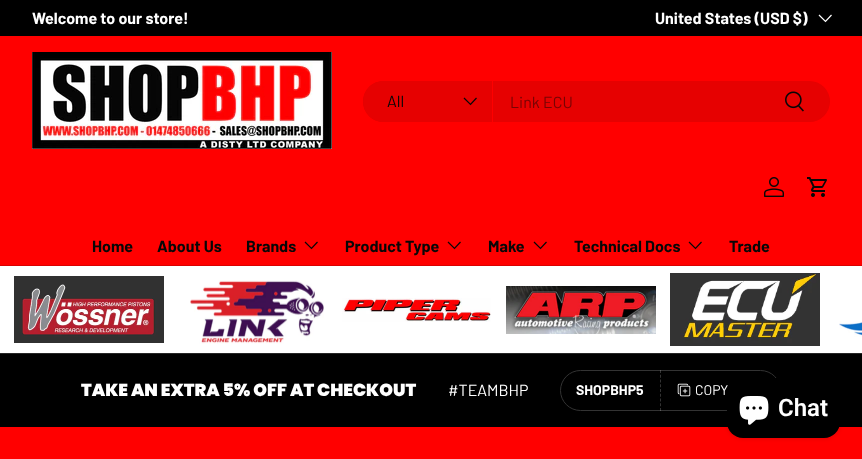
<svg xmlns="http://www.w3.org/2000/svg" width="862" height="459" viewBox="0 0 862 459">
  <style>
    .t1 { font: bold 16px Barlow; fill: #fff; }
    .t2 { font: 16px Barlow; fill: #070707; }
    .t3 { font: 16px Barlow; fill: #770404; }
    .t4 { font: bold 16px Barlow; fill: #070707; }
    .t5 { font: 900 17.4px Poppins; fill: #fff; }
    .t6 { font: 16px Barlow; fill: #fff; }
    .t7 { font: bold 14px Barlow; fill: #fff; }
    .t8 { font: 14px Barlow; fill: #fff; }
    .t9 { font: 600 24px Roboto; fill: #fff; }
  </style>
  <rect width="100%" height="100%" fill="#f00"/>
  <rect x="0" y="0" width="862" height="36" fill="#000"/>
  <text x="32" y="24" class="t1">Welcome to our store!</text>
  <text x="655" y="24" class="t1">United States (USD $)</text>
  <path d="M831.5 15L825.5 21.5L819 15" fill="none" stroke="#fff" stroke-width="1.2"/>
  <rect x="0" y="265" width="862" height="1" fill="#da0101"/>
  <image x="32" y="52" width="300" height="97" href="images/1.png"/>
  <rect x="363" y="81" width="467" height="41" rx="20.5" fill="#e60101"/>
  <path d="M383.5 81H493V122H383.5C372 122 363 113 363 101.5C363 90 372 81 383.5 81Z" fill="#e60101"/>
  <rect x="492" y="81" width="1" height="41" fill="#f00"/>
  <text x="387" y="107" class="t2">All</text>
  <path d="M476.5 98L470.5 104.5L464 98" fill="none" stroke="#070707" stroke-width="1.2"/>
  <text x="510" y="108" class="t3">Link ECU</text>
  <image x="785" y="91" width="19" height="21" href="images/2.png"/>
  <image x="764" y="177" width="20" height="20" href="images/3.png"/>
  <image x="807" y="177" width="20" height="20" href="images/4.png"/>
  <text x="92" y="252" class="t4">Home</text>
  <text x="157" y="252" class="t4">About Us</text>
  <text x="246" y="252" class="t4">Brands</text>
  <path d="M317.5 242L311.5 248.5L305 242" fill="none" stroke="#070707" stroke-width="1.2"/>
  <text x="345" y="252" class="t4">Product Type</text>
  <path d="M460.5 242L454.5 248.5L448 242" fill="none" stroke="#070707" stroke-width="1.2"/>
  <text x="488" y="252" class="t4">Make</text>
  <path d="M546.5 242L540.5 248.5L534 242" fill="none" stroke="#070707" stroke-width="1.2"/>
  <text x="574" y="252" class="t4">Technical Docs</text>
  <path d="M701.5 242L695.5 248.5L689 242" fill="none" stroke="#070707" stroke-width="1.2"/>
  <text x="729" y="252" class="t4">Trade</text>
  <rect x="0" y="266" width="862" height="87" fill="#fff"/>
  <image x="14" y="276" width="150" height="67" href="images/5.png"/>
  <image x="190" y="280" width="134" height="64" href="images/6.png"/>
  <image x="342" y="298" width="149" height="24" href="images/7.png"/>
  <image x="506" y="286" width="150" height="48" href="images/8.png"/>
  <image x="670" y="273" width="150" height="73" href="images/9.png"/>
  <image x="839" y="321" width="23" height="16" href="images/10.png"/>
  <rect x="0" y="354" width="862" height="73" fill="#000"/>
  <rect x="0" y="353" width="862" height="1" fill="#262626"/>
  <text x="81" y="396" class="t5">TAKE AN EXTRA 5% OFF AT CHECKOUT</text>
  <text x="448" y="396" class="t6">#TEAMBHP</text>
  <rect x="560.5" y="370.5" width="220" height="40" rx="20" fill="none" stroke="#333"/>
  <text x="576" y="395" class="t7">SHOPBHP5</text>
  <path d="M660.5 370V411" fill="none" stroke="#ffffff33" stroke-dasharray="3 1.75"/>
  <image x="677" y="383" width="14" height="14" href="images/11.png"/>
  <text x="695" y="395" class="t8">COPY</text>
  <rect x="727" y="378" width="113" height="60" rx="16" fill="#00000026" filter="blur(2.5px)"/>
  <rect x="727" y="378" width="113" height="60" rx="16" fill="#000"/>
  <image x="739" y="396" width="30" height="29" href="images/12.png"/>
  <text x="778" y="416" class="t9">Chat</text>
</svg>
